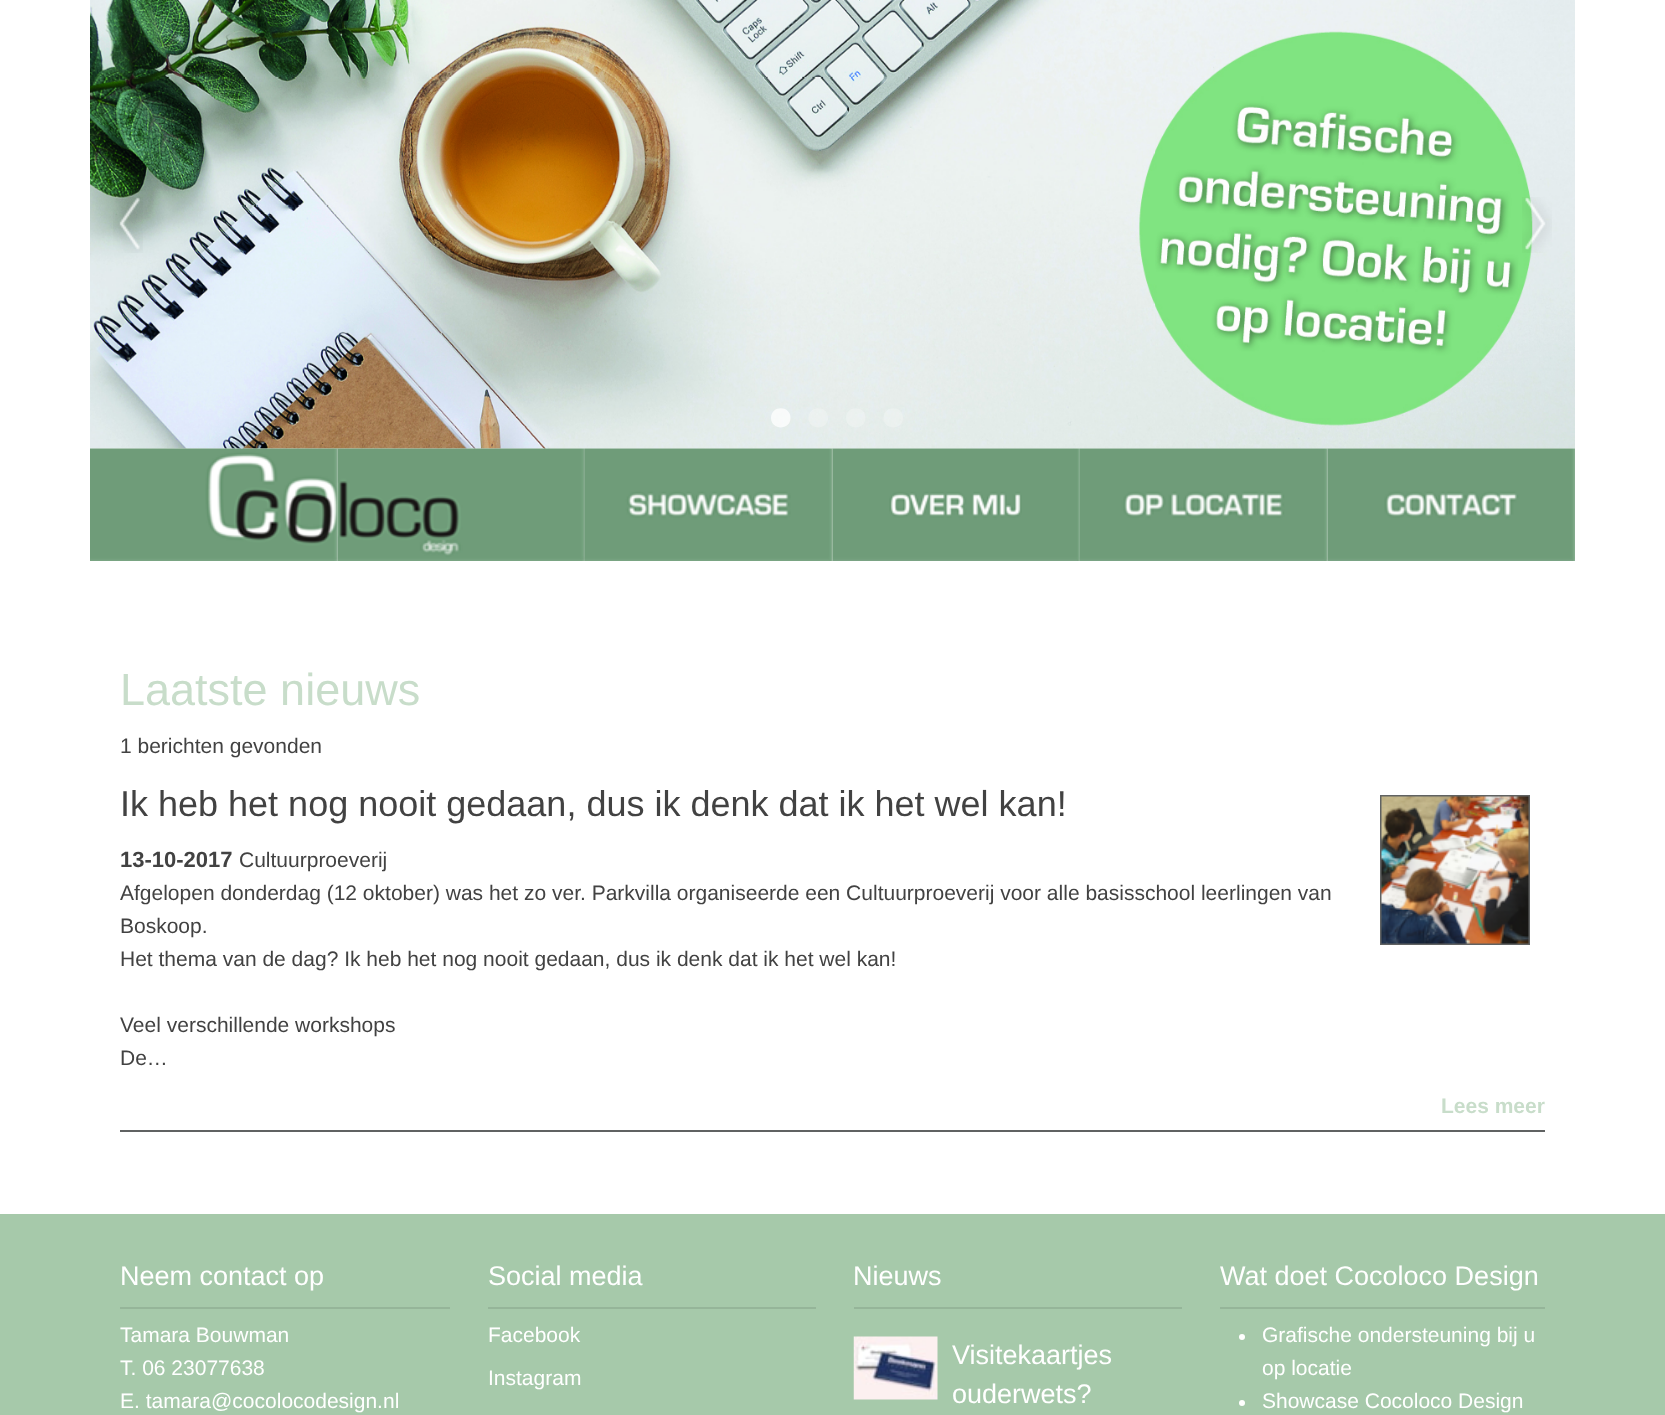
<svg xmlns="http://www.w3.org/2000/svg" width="1665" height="1415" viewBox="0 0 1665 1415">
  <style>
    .t1 { font: 45px Liberation Sans; fill: #c8ddca; }
    .t2 { font: 21px Liberation Sans; fill: #424242; }
    .t3 { font: 36px Liberation Sans; fill: #424242; }
    .t4 { font: bold 22px Liberation Sans; fill: #424242; }
    .t5 { font: bold 21px Liberation Sans; fill: #c8ddca; }
    .t6 { font: 27px Liberation Sans; fill: #fff; }
    .t7 { font: 21px Liberation Sans; fill: #fff; }
  </style>
  <rect width="100%" height="100%" fill="#fff"/>
  <image x="90" y="0" width="1485" height="449" href="images/1.png"/>
  <image x="113" y="197" width="30" height="56" href="images/2.png"/>
  <image x="1522" y="197" width="30" height="56" href="images/3.png"/>
  <path d="M790.5 418C790.5 405 771 405 771 418C771 430.5 790.5 430.5 790.5 418Z" fill="#ffffffbf"/>
  <path d="M828 418C828 405 808.5 405 808.5 418C808.5 430.5 828 430.5 828 418ZM865.5 418C865.5 405 846 405 846 418C846 430.5 865.5 430.5 865.5 418Z" fill="#ffffff40"/>
  <path d="M903 418C903 405 883.5 405 883.5 418C883.5 430.5 903 430.5 903 418Z" fill="#ffffff40"/>
  <image x="90" y="448" width="248" height="113" href="images/4.png"/>
  <image x="337" y="448" width="248" height="113" href="images/5.png"/>
  <image x="585" y="448" width="248" height="113" href="images/6.png"/>
  <image x="832" y="448" width="248" height="113" href="images/7.png"/>
  <image x="1080" y="448" width="248" height="113" href="images/8.png"/>
  <image x="1327" y="448" width="248" height="113" href="images/9.png"/>
  <text x="120" y="705" class="t1">Laatste nieuws</text>
  <text x="120" y="753" class="t2">1 berichten gevonden</text>
  <text x="120" y="816" class="t3">Ik heb het nog nooit gedaan, dus ik denk dat ik het wel kan!</text>
  <rect x="1381" y="796" width="148" height="148" fill="none" stroke="#606262" stroke-width="2"/>
  <image x="1381" y="796" width="148" height="148" href="images/10.png"/>
  <text x="120" y="867" class="t4">13-10-2017</text>
  <text x="239" y="867" class="t2">Cultuurproeverij</text>
  <text x="120" y="900" class="t2">Afgelopen donderdag (12 oktober) was het zo ver. Parkvilla organiseerde een Cultuurproeverij voor alle basisschool leerlingen van</text>
  <text x="120" y="933" class="t2">Boskoop.</text>
  <text x="120" y="966" class="t2">Het thema van de dag? Ik heb het nog nooit gedaan, dus ik denk dat ik het wel kan!</text>
  <text x="120" y="1032" class="t2">Veel verschillende workshops</text>
  <text x="120" y="1065" class="t2">De…</text>
  <text x="1441" y="1113" class="t5">Lees meer</text>
  <rect x="120" y="1130" width="1425" height="2" fill="#606262"/>
  <rect x="0" y="1214" width="1665" height="201" fill="#a6c9aa"/>
  <text x="120" y="1285" class="t6">Neem contact op</text>
  <rect x="120" y="1307" width="330" height="2" fill="#95b599"/>
  <text x="120" y="1342" class="t7">Tamara Bouwman</text>
  <text x="120" y="1375" class="t7">T. 06 23077638</text>
  <text x="120" y="1408" class="t7">E. tamara@cocolocodesign.nl</text>
  <text x="488" y="1285" class="t6">Social media</text>
  <rect x="488" y="1307" width="328" height="2" fill="#95b599"/>
  <text x="488" y="1342" class="t7">Facebook</text>
  <text x="488" y="1385" class="t7">Instagram</text>
  <text x="853" y="1285" class="t6">Nieuws</text>
  <rect x="854" y="1307" width="328" height="2" fill="#95b599"/>
  <image x="853" y="1336" width="85" height="64" href="images/11.png"/>
  <text x="952" y="1364" class="t6">Visitekaartjes</text>
  <text x="952" y="1403" class="t6">ouderwets?</text>
  <text x="1220" y="1285" class="t6">Wat doet Cocoloco Design</text>
  <rect x="1220" y="1307" width="325" height="2" fill="#95b599"/>
  <circle cx="1242" cy="1337" r="3" fill="#fff"/>
  <text x="1262" y="1342" class="t7">Grafische ondersteuning bij u</text>
  <text x="1262" y="1375" class="t7">op locatie</text>
  <circle cx="1242" cy="1403" r="3" fill="#fff"/>
  <text x="1262" y="1408" class="t7">Showcase Cocoloco Design</text>
</svg>
